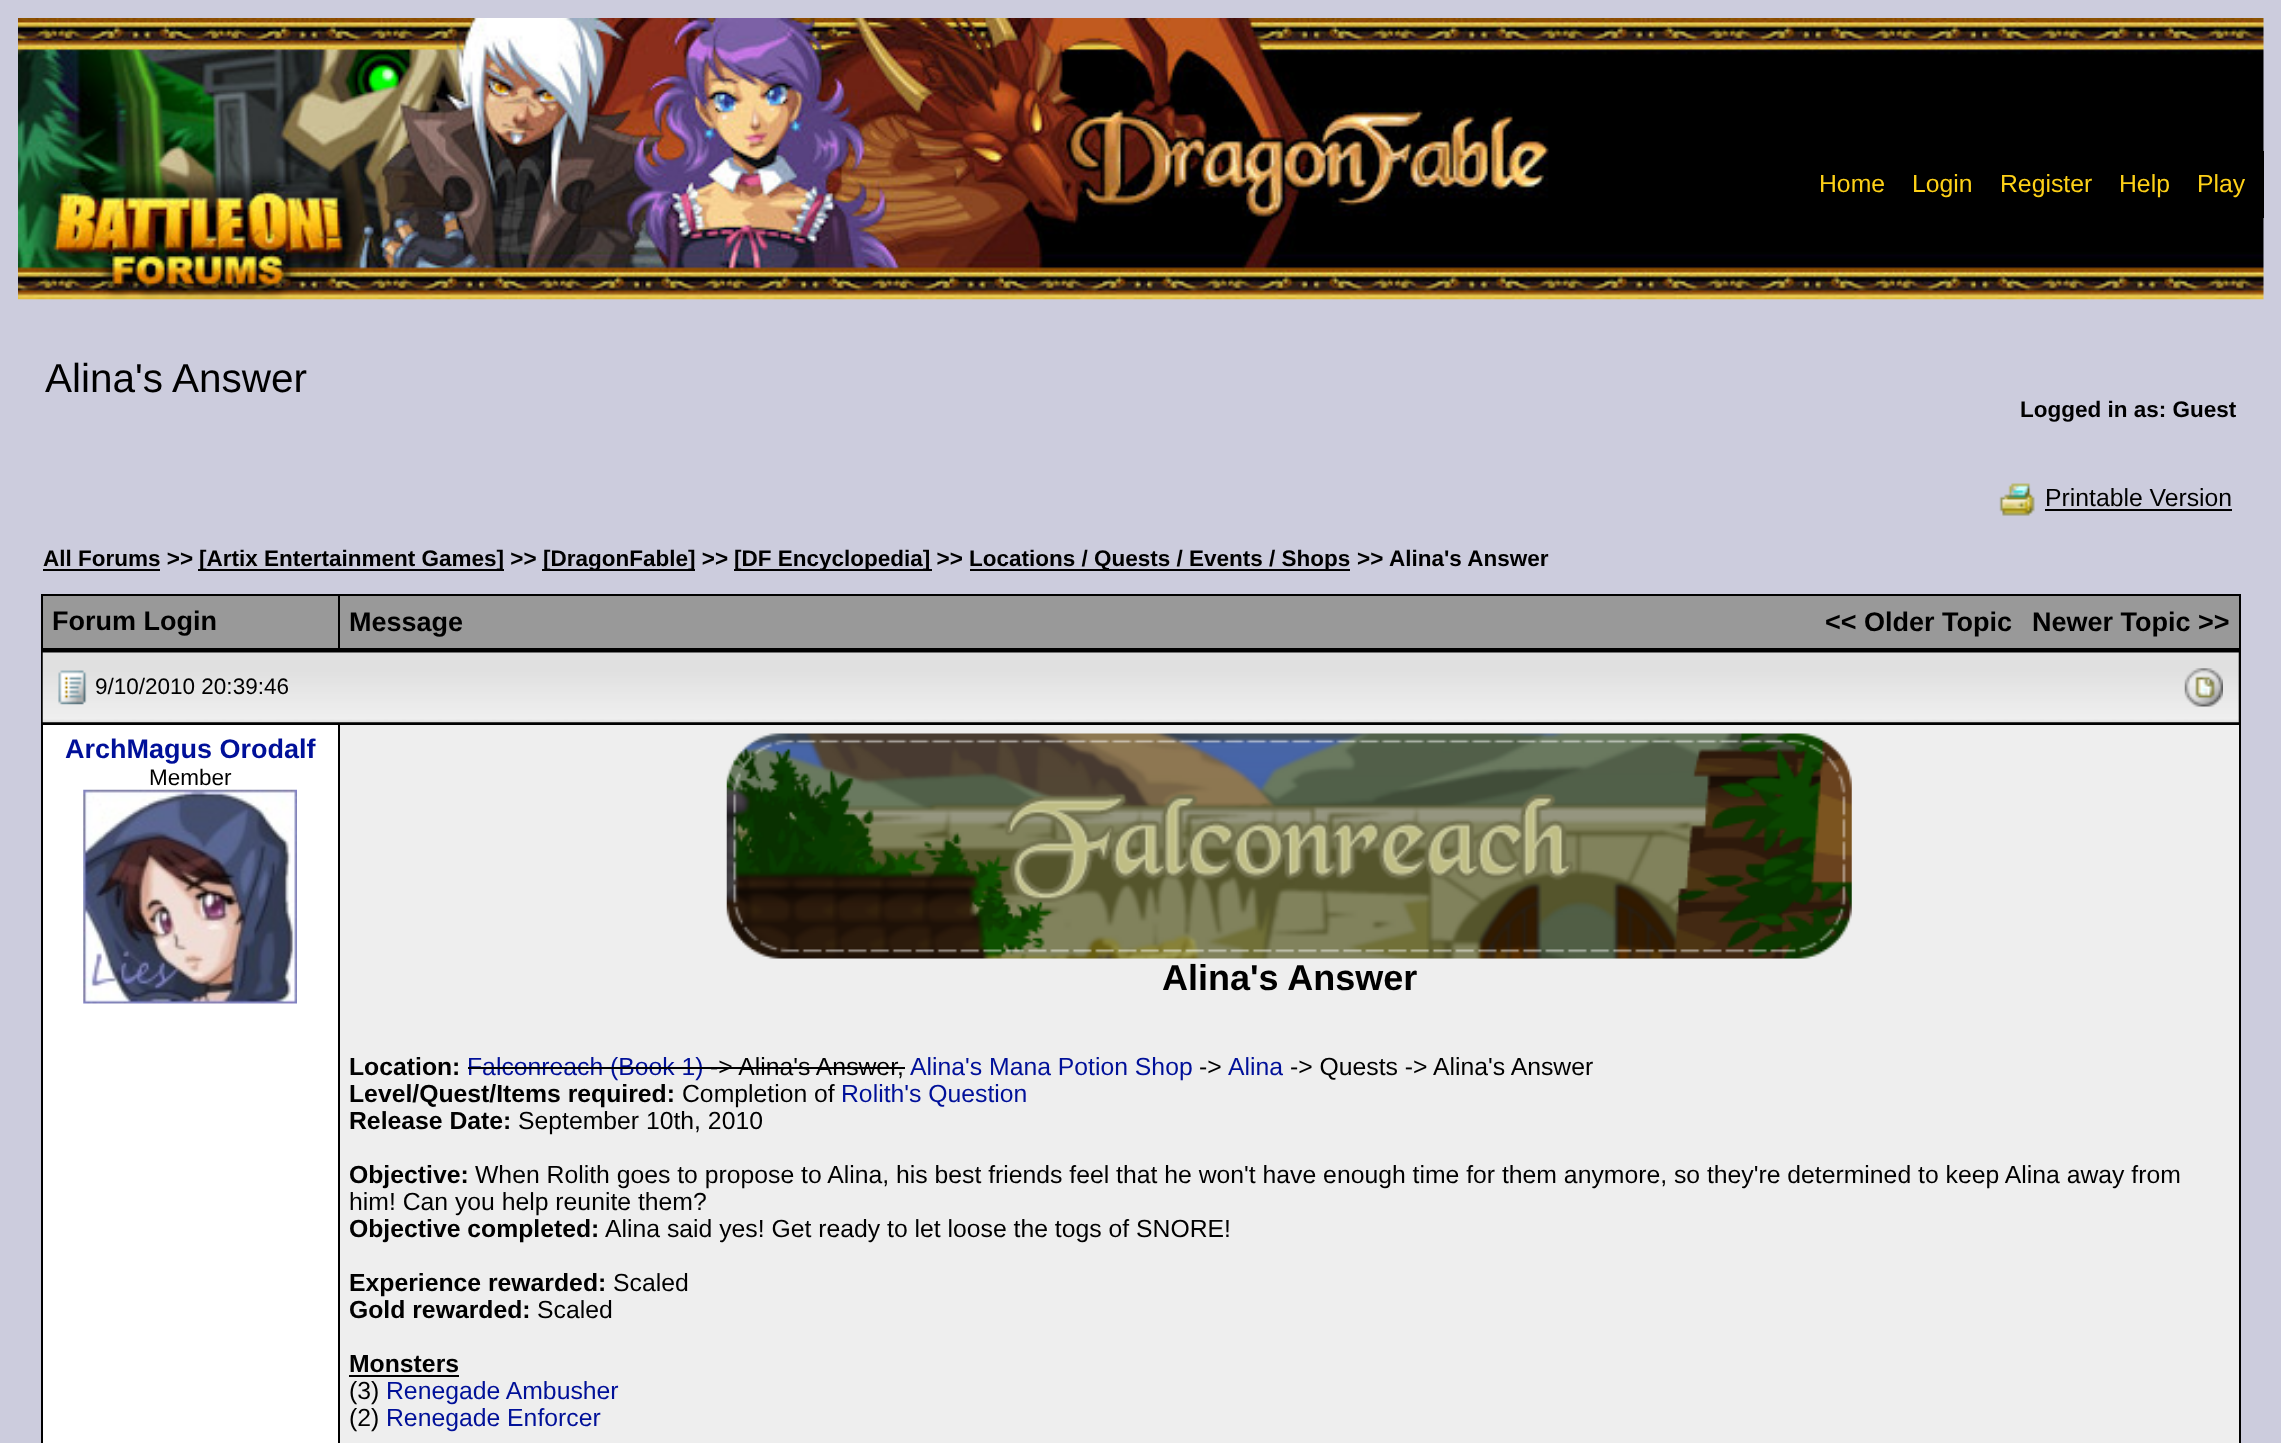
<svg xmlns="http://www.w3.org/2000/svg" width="2281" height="1443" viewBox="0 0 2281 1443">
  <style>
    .t1 { font: 24.75px Liberation Sans; fill: #fdd017; }
    .t2 { font: 40.5px Liberation Sans; fill: #000; }
    .t3 { font: bold 22.5px Liberation Sans; fill: #000; }
    .t4 { font: 24.75px Liberation Sans; fill: #000; }
    .t5 { font: bold 27px Liberation Sans; fill: #000; }
    .t6 { font: 22.5px Liberation Sans; fill: #000; }
    .t7 { font: bold 27px Liberation Sans; fill: #001099; }
    .t8 { font: bold 36px Liberation Sans; fill: #000; }
    .t9 { font: bold 24.75px Liberation Sans; fill: #000; }
    .t10 { font: 24.75px Liberation Sans; fill: #001099; }
  </style>
  <rect width="100%" height="100%" fill="#ccd"/>
  <image x="18" y="18" width="2246" height="282" href="images/1.png"/>
  <rect x="2263" y="151" width="1" height="67" fill="#000"/>
  <text x="1819" y="192" class="t1">Home</text>
  <text x="1912" y="192" class="t1">Login</text>
  <text x="2000" y="192" class="t1">Register</text>
  <text x="2119" y="192" class="t1">Help</text>
  <text x="2197" y="192" class="t1">Play</text>
  <text x="45" y="392" class="t2">Alina's Answer</text>
  <text x="2020" y="417" class="t3">Logged in as: Guest</text>
  <image x="1999" y="483" width="36" height="33" href="images/2.png"/>
  <text x="2045" y="506" class="t4">Printable Version</text>
  <rect x="2045" y="509" width="187" height="2" fill="#000"/>
  <text x="43" y="566" class="t3">All Forums &gt;&gt;</text>
  <rect x="43" y="569" width="117" height="2" fill="#000"/>
  <rect x="198" y="569" width="306" height="2" fill="#000"/>
  <text x="199" y="566" class="t3">[Artix Entertainment Games] &gt;&gt;</text>
  <rect x="542" y="569" width="153" height="2" fill="#000"/>
  <text x="543" y="566" class="t3">[DragonFable] &gt;&gt;</text>
  <rect x="734" y="569" width="198" height="2" fill="#000"/>
  <text x="734" y="566" class="t3">[DF Encyclopedia] &gt;&gt;</text>
  <rect x="970" y="569" width="380" height="2" fill="#000"/>
  <text x="969" y="566" class="t3">Locations / Quests / Events / Shops</text>
  <text x="1357" y="566" class="t3">&gt;&gt;</text>
  <text x="1389" y="566" class="t3">Alina's Answer</text>
  <rect x="41" y="594" width="2200" height="849" fill="#000"/>
  <rect x="43" y="596" width="295" height="52" fill="#999"/>
  <text x="52" y="630" class="t5">Forum Login</text>
  <rect x="340" y="596" width="1899" height="52" fill="#999"/>
  <text x="349" y="631" class="t5">Message</text>
  <text x="1825" y="631" class="t5">&lt;&lt; Older Topic</text>
  <text x="2032" y="631" class="t5">Newer Topic &gt;&gt;</text>
  <image x="42" y="652" width="2197" height="71" href="images/3.png"/>
  <image x="58" y="670" width="29" height="35" href="images/4.png"/>
  <text x="95" y="694" class="t6">9/10/2010 20:39:46</text>
  <image x="2184" y="668" width="39" height="39" href="images/5.png"/>
  <rect x="43" y="725" width="295" height="718" fill="#fff"/>
  <text x="65" y="758" class="t7">ArchMagus Orodalf</text>
  <text x="149" y="785" class="t6">Member</text>
  <image x="83" y="789" width="214" height="215" href="images/6.png"/>
  <rect x="340" y="725" width="1899" height="718" fill="#eee"/>
  <image x="726" y="733" width="1126" height="226" href="images/7.png"/>
  <text x="1162" y="990" class="t8">Alina's Answer</text>
  <text x="349" y="1075" class="t9">Location:</text>
  <text x="467" y="1075" class="t10">Falconreach (Book 1)</text>
  <rect x="468" y="1067" width="236" height="2" fill="#000"/>
  <text x="710" y="1075" class="t4">-&gt; Alina's Answer,</text>
  <rect x="704" y="1067" width="201" height="2" fill="#000"/>
  <text x="910" y="1075" class="t10">Alina's Mana Potion Shop</text>
  <text x="1199" y="1075" class="t4">-&gt;</text>
  <text x="1228" y="1075" class="t10">Alina</text>
  <text x="1290" y="1075" class="t4">-&gt; Quests -&gt; Alina's Answer</text>
  <text x="349" y="1102" class="t9">Level/Quest/Items required:</text>
  <text x="682" y="1102" class="t4">Completion of</text>
  <text x="841" y="1102" class="t10">Rolith's Question</text>
  <text x="349" y="1129" class="t9">Release Date:</text>
  <text x="518" y="1129" class="t4">September 10th, 2010</text>
  <text x="349" y="1183" class="t9">Objective:</text>
  <text x="475" y="1183" class="t4">When Rolith goes to propose to Alina, his best friends feel that he won't have enough time for them anymore, so they're determined to keep Alina away from</text>
  <text x="349" y="1210" class="t4">him! Can you help reunite them?</text>
  <text x="349" y="1237" class="t9">Objective completed:</text>
  <text x="605" y="1237" class="t4">Alina said yes! Get ready to let loose the togs of SNORE!</text>
  <text x="349" y="1291" class="t9">Experience rewarded:</text>
  <text x="613" y="1291" class="t4">Scaled</text>
  <text x="349" y="1318" class="t9">Gold rewarded:</text>
  <text x="537" y="1318" class="t4">Scaled</text>
  <text x="349" y="1372" class="t9">Monsters</text>
  <rect x="349" y="1375" width="110" height="2" fill="#000"/>
  <text x="349" y="1399" class="t4">(3)</text>
  <text x="386" y="1399" class="t10">Renegade Ambusher</text>
  <text x="349" y="1426" class="t4">(2)</text>
  <text x="386" y="1426" class="t10">Renegade Enforcer</text>
</svg>
